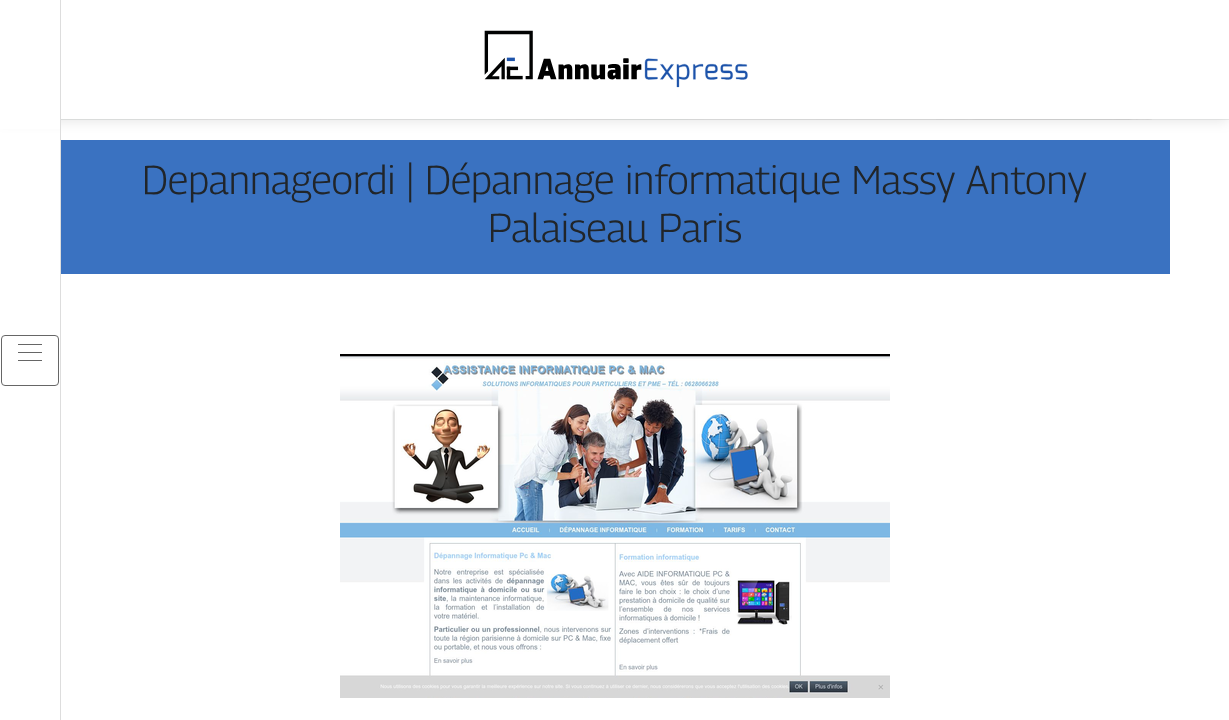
<svg xmlns="http://www.w3.org/2000/svg" width="1229" height="720" viewBox="0 0 1229 720">
  <style>
    .t1 { font: 100 40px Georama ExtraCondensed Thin; fill: #212529; }
  </style>
  <rect width="100%" height="100%" fill="#fff"/>
  <image x="61" y="119" width="1168" height="1" href="images/1.png"/>
  <rect x="61" y="140" width="1109" height="134" fill="#3a72c1"/>
  <rect x="0" y="2" width="1229" height="119" fill="#0000001a" filter="blur(6.5px)"/>
  <rect x="61" y="0" width="1168" height="119" fill="#fff"/>
  <rect x="0" y="0" width="60" height="129" fill="#fff"/>
  <rect x="60" y="0" width="1" height="720" fill="#ddd"/>
  <rect x="1.5" y="335.5" width="57" height="50" rx="3.5" fill="none" stroke="#666"/>
  <rect x="18" y="344" width="24" height="1" fill="#666"/>
  <rect x="18" y="352" width="24" height="1" fill="#666"/>
  <rect x="18" y="360" width="24" height="1" fill="#666"/>
  <image x="484" y="30" width="264" height="58" href="images/2.png"/>
  <text x="142" y="194" class="t1">Depannageordi | Dépannage informatique Massy Antony</text>
  <text x="488" y="242" class="t1">Palaiseau Paris</text>
  <image x="340" y="354" width="550" height="344" href="images/3.png"/>
</svg>
